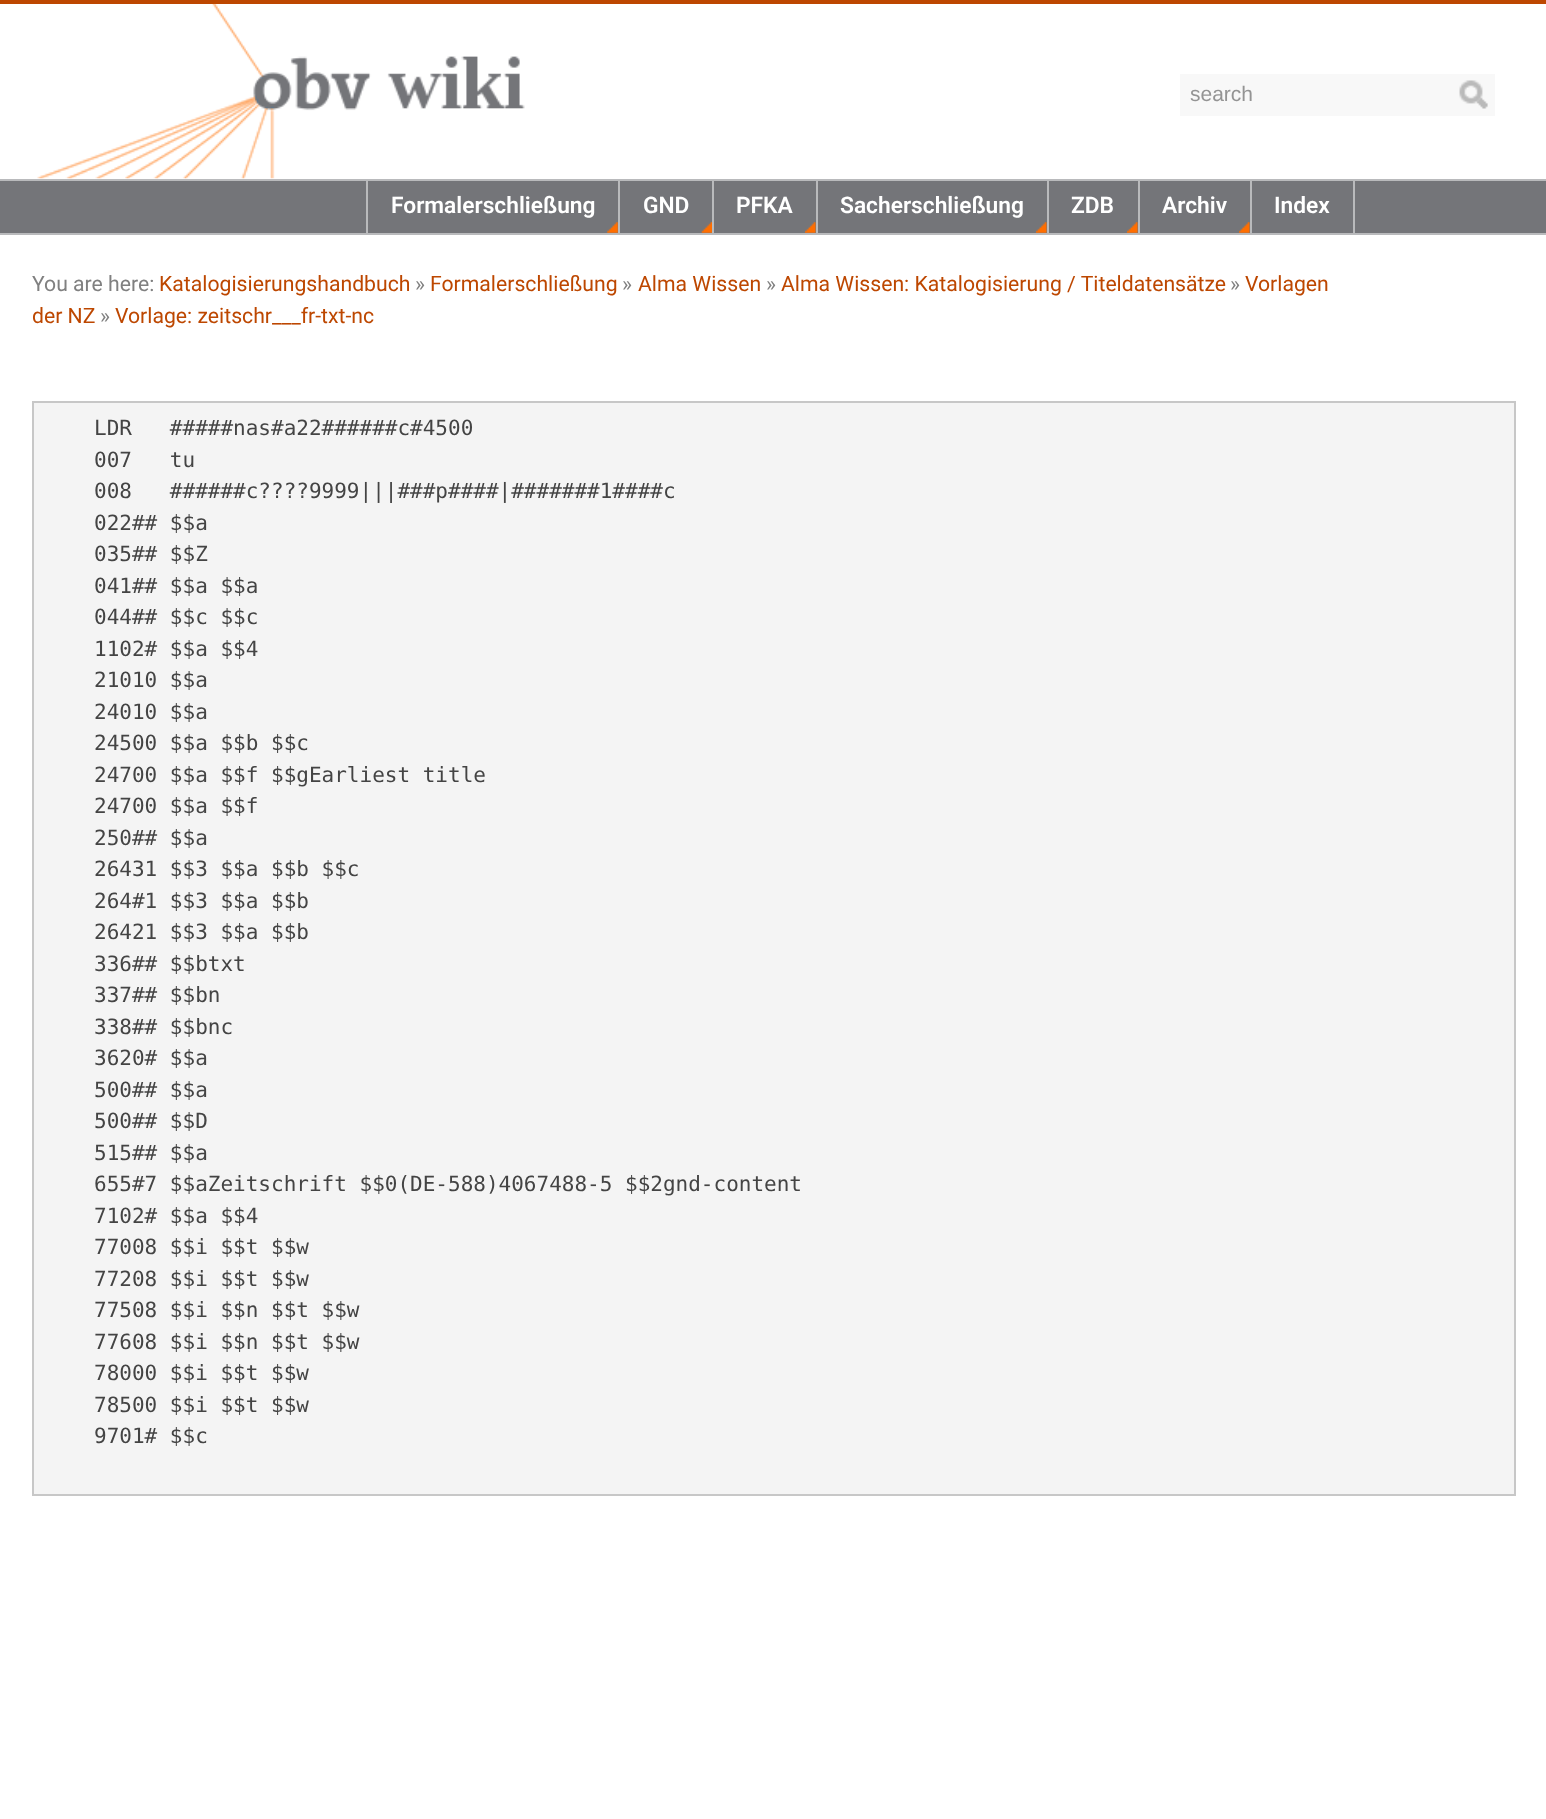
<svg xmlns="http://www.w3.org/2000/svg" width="1546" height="1819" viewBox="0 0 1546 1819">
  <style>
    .t1 { font: 21px Liberation Sans; fill: #949494; }
    .t2 { font: 600 22.75px Roboto; fill: #fff; }
    .t3 { font: 21.2px Roboto; fill: #808080; }
    .t4 { font: 21.2px Roboto; fill: #bd4700; }
    .t5 { font: 21px DejaVu Sans Mono; fill: #444; }
  </style>
  <rect width="100%" height="100%" fill="#fff"/>
  <rect x="0" y="0" width="1546" height="4" fill="#bd4700"/>
  <image x="37" y="3" width="488" height="176" href="images/1.png"/>
  <rect x="1180" y="74" width="315" height="42" fill="#f8f8f8"/>
  <text x="1190" y="101" class="t1">search</text>
  <image x="1459" y="80" width="29" height="29" href="images/2.png"/>
  <rect x="0" y="181" width="1546" height="52" fill="#747579"/>
  <rect x="0" y="179" width="1546" height="2" fill="#b9babc"/>
  <rect x="0" y="233" width="1546" height="2" fill="#b9babc"/>
  <image x="607" y="222" width="11" height="11" href="images/3.png"/>
  <rect x="618" y="180" width="2" height="53" fill="#b9babc"/>
  <rect x="366" y="180" width="2" height="53" fill="#b9babc"/>
  <text x="391" y="213" class="t2">Formalerschließung</text>
  <image x="701" y="222" width="11" height="11" href="images/4.png"/>
  <rect x="712" y="180" width="2" height="53" fill="#b9babc"/>
  <text x="643" y="213" class="t2">GND</text>
  <image x="805" y="222" width="11" height="11" href="images/5.png"/>
  <rect x="816" y="180" width="2" height="53" fill="#b9babc"/>
  <text x="736" y="213" class="t2">PFKA</text>
  <image x="1036" y="222" width="11" height="11" href="images/5.png"/>
  <rect x="1047" y="180" width="2" height="53" fill="#b9babc"/>
  <text x="840" y="213" class="t2">Sacherschließung</text>
  <image x="1127" y="222" width="11" height="11" href="images/5.png"/>
  <rect x="1138" y="180" width="2" height="53" fill="#b9babc"/>
  <text x="1071" y="213" class="t2">ZDB</text>
  <image x="1239" y="222" width="11" height="11" href="images/6.png"/>
  <rect x="1250" y="180" width="2" height="53" fill="#b9babc"/>
  <text x="1162" y="213" class="t2">Archiv</text>
  <rect x="1353" y="180" width="2" height="53" fill="#b9babc"/>
  <text x="1274" y="213" class="t2">Index</text>
  <text x="32" y="291" class="t3">You are here:</text>
  <text x="159" y="291" class="t4">Katalogisierungshandbuch</text>
  <text x="415" y="291" class="t3">»</text>
  <text x="430" y="291" class="t4">Formalerschließung</text>
  <text x="622" y="291" class="t3">»</text>
  <text x="638" y="291" class="t4">Alma Wissen</text>
  <text x="766" y="291" class="t3">»</text>
  <text x="781" y="291" class="t4">Alma Wissen: Katalogisierung / Titeldatensätze</text>
  <text x="1230" y="291" class="t3">»</text>
  <text x="1245" y="291" class="t4">Vorlagen</text>
  <text x="32" y="323" class="t4">der NZ</text>
  <text x="100" y="323" class="t3">»</text>
  <text x="115" y="323" class="t4">Vorlage: zeitschr___fr-txt-nc</text>
  <rect x="33" y="402" width="1482" height="1093" fill="#f4f4f4" stroke="#c7c7c7" stroke-width="2"/>
  <text x="94" y="435" class="t5" xml:space="preserve">LDR   #####nas#a22######c#4500</text>
  <text x="94" y="467" class="t5" xml:space="preserve">007   tu</text>
  <text x="94" y="498" class="t5" xml:space="preserve">008   ######c????9999|||###p####|#######1####c</text>
  <text x="94" y="530" class="t5">022## $$a</text>
  <text x="94" y="561" class="t5">035## $$Z</text>
  <text x="94" y="593" class="t5">041## $$a $$a</text>
  <text x="94" y="624" class="t5">044## $$c $$c</text>
  <text x="94" y="656" class="t5">1102# $$a $$4</text>
  <text x="94" y="687" class="t5">21010 $$a</text>
  <text x="94" y="719" class="t5">24010 $$a</text>
  <text x="94" y="750" class="t5">24500 $$a $$b $$c</text>
  <text x="94" y="782" class="t5">24700 $$a $$f $$gEarliest title</text>
  <text x="94" y="813" class="t5">24700 $$a $$f</text>
  <text x="94" y="845" class="t5">250## $$a</text>
  <text x="94" y="876" class="t5">26431 $$3 $$a $$b $$c</text>
  <text x="94" y="908" class="t5">264#1 $$3 $$a $$b</text>
  <text x="94" y="939" class="t5">26421 $$3 $$a $$b</text>
  <text x="94" y="971" class="t5">336## $$btxt</text>
  <text x="94" y="1002" class="t5">337## $$bn</text>
  <text x="94" y="1034" class="t5">338## $$bnc</text>
  <text x="94" y="1065" class="t5">3620# $$a</text>
  <text x="94" y="1097" class="t5">500## $$a</text>
  <text x="94" y="1128" class="t5">500## $$D</text>
  <text x="94" y="1160" class="t5">515## $$a</text>
  <text x="94" y="1191" class="t5">655#7 $$aZeitschrift $$0(DE-588)4067488-5 $$2gnd-content</text>
  <text x="94" y="1223" class="t5">7102# $$a $$4</text>
  <text x="94" y="1254" class="t5">77008 $$i $$t $$w</text>
  <text x="94" y="1286" class="t5">77208 $$i $$t $$w</text>
  <text x="94" y="1317" class="t5">77508 $$i $$n $$t $$w</text>
  <text x="94" y="1349" class="t5">77608 $$i $$n $$t $$w</text>
  <text x="94" y="1380" class="t5">78000 $$i $$t $$w</text>
  <text x="94" y="1412" class="t5">78500 $$i $$t $$w</text>
  <text x="94" y="1443" class="t5">9701# $$c</text>
</svg>
